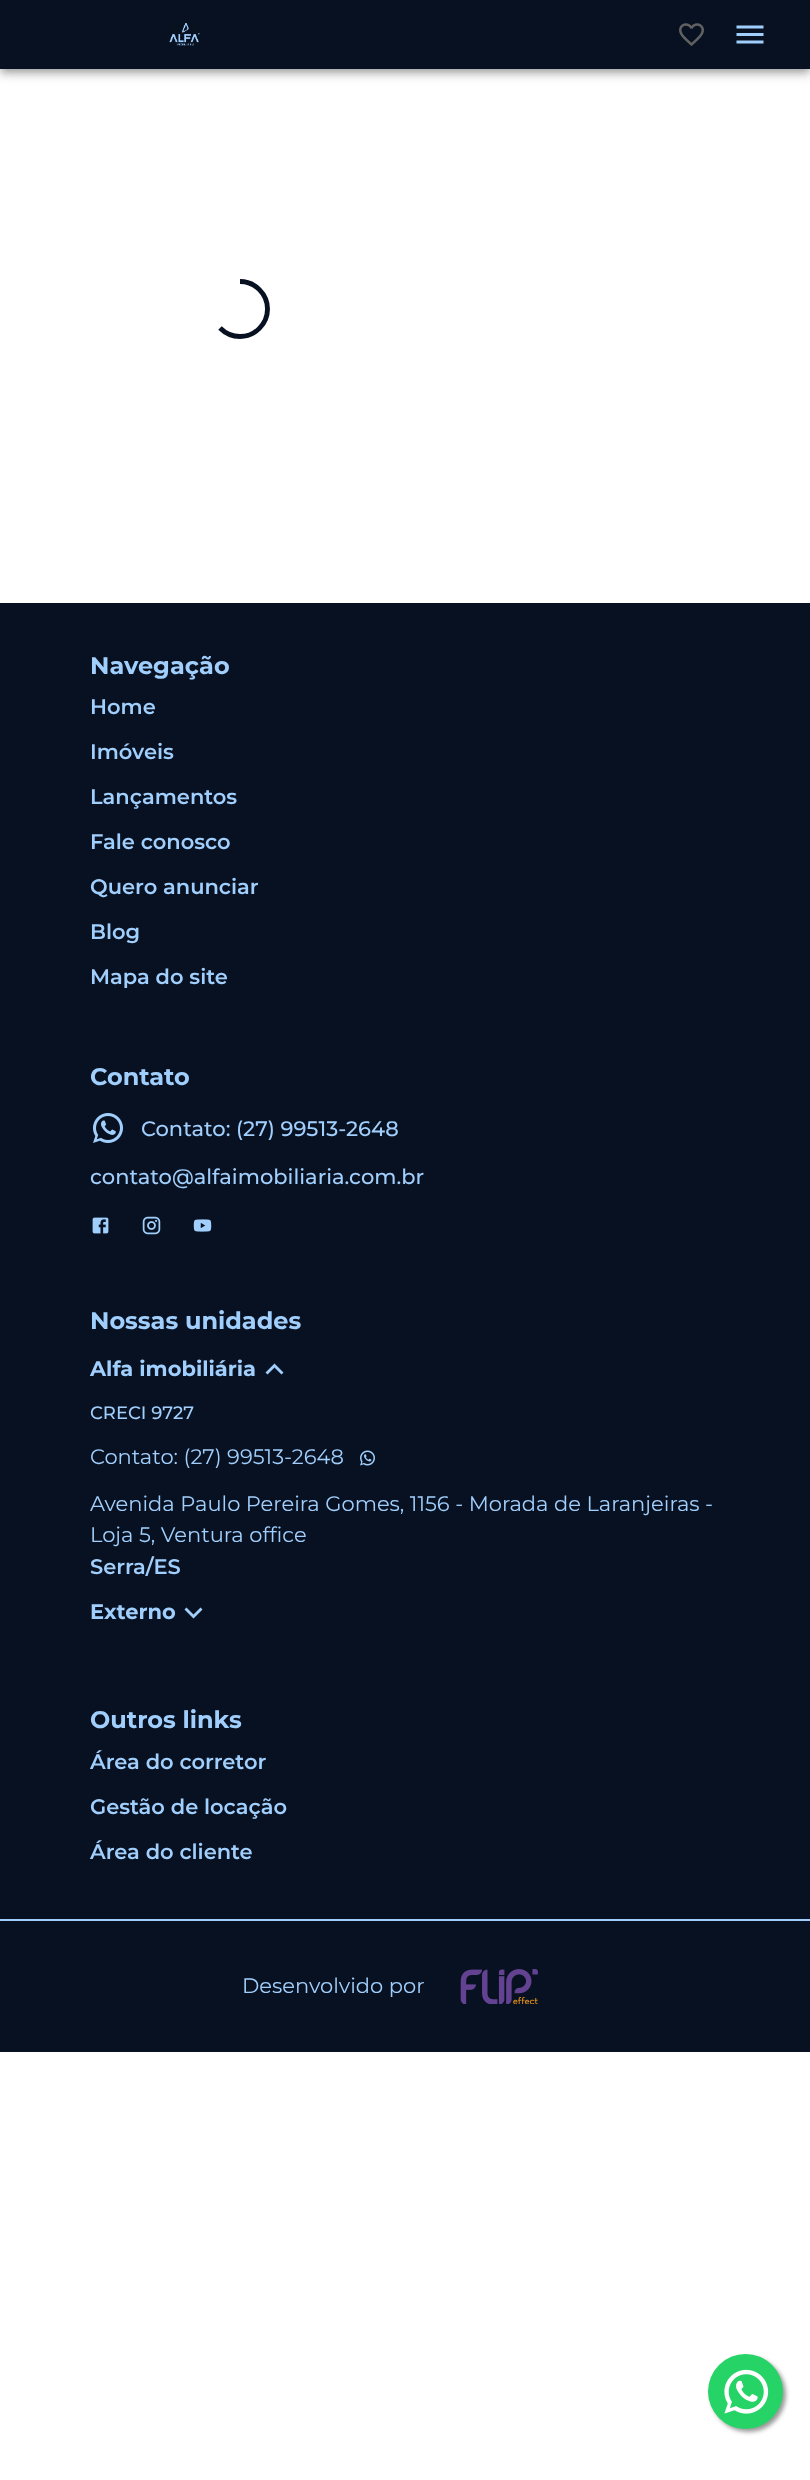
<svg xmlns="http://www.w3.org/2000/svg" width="810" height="2480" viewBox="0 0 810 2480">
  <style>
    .t1 { font: bold 24px Montserrat; fill: #a1cffd; }
    .t2 { font: 600 21px Montserrat; fill: #a1cffd; }
    .t3 { font: 500 21px Montserrat; fill: #a1cffd; }
    .t4 { font: bold 21px Montserrat; fill: #a1cffd; }
    .t5 { font: 500 18px Montserrat; fill: #a1cffd; }
    .t6 { font: 21px Montserrat; fill: #a1cffd; }
  </style>
  <rect width="100%" height="100%" fill="#fff"/>
  <rect x="0" y="2" width="810" height="69" fill="#0000001f" filter="blur(7.5px)"/>
  <rect x="0" y="6" width="810" height="69" fill="#00000024" filter="blur(4px)"/>
  <rect x="2" y="5" width="807" height="66" fill="#00000033" filter="blur(3px)"/>
  <rect x="0" y="0" width="810" height="69" fill="#081121"/>
  <image x="169" y="23" width="31" height="23" href="images/1.png"/>
  <image x="679" y="23" width="25" height="23" href="images/2.png"/>
  <image x="736" y="25" width="28" height="19" href="images/3.png"/>
  <path d="M240 281.5C255 281.5 267.5 294 267.5 309C267.5 324 255 336.5 240 336.5C232 336.5 225 333 220 328" fill="none" stroke="#081121" stroke-width="4.9"/>
  <rect x="0" y="603" width="810" height="1449" fill="#081121"/>
  <text x="90" y="674" class="t1">Navegação</text>
  <text x="90" y="714" class="t2">Home</text>
  <text x="90" y="759" class="t2">Imóveis</text>
  <text x="90" y="804" class="t2">Lançamentos</text>
  <text x="90" y="849" class="t2">Fale conosco</text>
  <text x="90" y="894" class="t2">Quero anunciar</text>
  <text x="90" y="939" class="t2">Blog</text>
  <text x="90" y="984" class="t2">Mapa do site</text>
  <text x="90" y="1085" class="t1">Contato</text>
  <image x="93" y="1113" width="30" height="30" href="images/4.png"/>
  <text x="141" y="1136" class="t3">Contato: (27) 99513-2648</text>
  <text x="90" y="1184" class="t3">contato@alfaimobiliaria.com.br</text>
  <image x="92" y="1217" width="17" height="17" href="images/5.png"/>
  <image x="142" y="1216" width="19" height="19" href="images/6.png"/>
  <image x="193" y="1219" width="19" height="13" href="images/7.png"/>
  <text x="90" y="1329" class="t1">Nossas unidades</text>
  <text x="90" y="1376" class="t4">Alfa imobiliária</text>
  <path d="M274.5 1363.5L265.5 1372.5L267.5 1374.5L274.5 1367.5L281.5 1374.5L283.5 1372.5Z" fill="#a1cffd"/>
  <text x="90" y="1419" class="t5">CRECI 9727</text>
  <text x="90" y="1464" class="t6">Contato: (27) 99513-2648</text>
  <image x="360" y="1450" width="15" height="16" href="images/8.png"/>
  <text x="90" y="1511" class="t6">Avenida Paulo Pereira Gomes, 1156 - Morada de Laranjeiras -</text>
  <text x="90" y="1542" class="t6">Loja 5, Ventura office</text>
  <text x="90" y="1574" class="t2">Serra/ES</text>
  <text x="90" y="1619" class="t4">Externo</text>
  <path d="M200.5 1607.5L193.5 1614.5L186.5 1607.5L184.5 1609.5L193.5 1618.5L202.5 1609.5Z" fill="#a1cffd"/>
  <text x="90" y="1728" class="t1">Outros links</text>
  <text x="90" y="1769" class="t2">Área do corretor</text>
  <text x="90" y="1814" class="t2">Gestão de locação</text>
  <text x="90" y="1859" class="t2">Área do cliente</text>
  <rect x="0" y="1919" width="810" height="2" fill="#a1cffd"/>
  <text x="242" y="1993" class="t6">Desenvolvido por</text>
  <image x="460" y="1969" width="78" height="35" href="images/9.png"/>
  <rect x="711" y="2357" width="75" height="75" rx="37.5" fill="#999" filter="blur(2px)"/>
  <circle cx="745.5" cy="2391.5" r="37.5" fill="#25d366"/>
  <image x="724" y="2369" width="45" height="45" href="images/10.png"/>
</svg>
